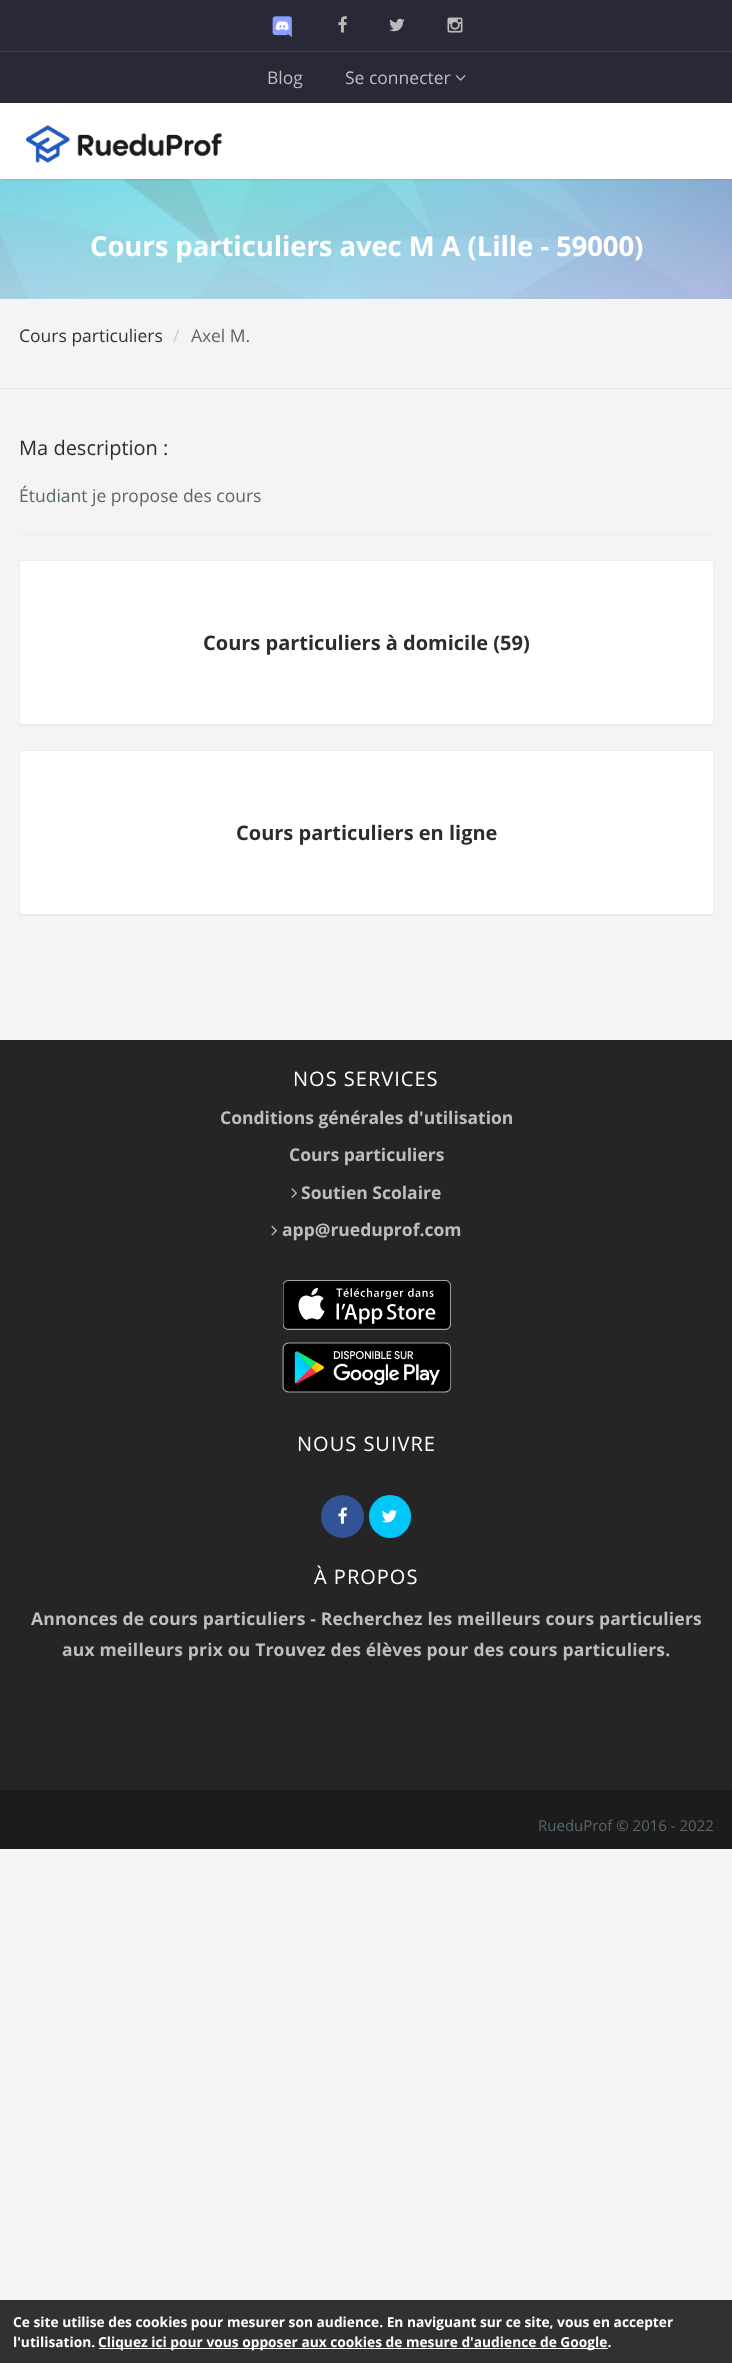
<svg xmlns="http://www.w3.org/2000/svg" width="732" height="2363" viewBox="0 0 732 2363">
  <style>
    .t1 { font: 17.5px Open Sans; fill: #bebebe; }
    .t2 { font: bold 27.5px Open Sans; letter-spacing: -0.1px; fill: #fff; }
    .t3 { font: 17.5px Open Sans; fill: #2d3436; }
    .t4 { font: 17.5px Open Sans; fill: #ccc; }
    .t5 { font: 17.5px Open Sans; fill: #58666e; }
    .t6 { font: 20px Open Sans; fill: #2c2c2c; }
    .t7 { font: bold 20px Open Sans; fill: #2c2c2c; }
    .t8 { font: 20px Open Sans; letter-spacing: 1px; fill: #fff; }
    .t9 { font: bold 17.5px Open Sans; fill: #bebebe; }
    .t10 { font: bold 17.5px Open Sans; letter-spacing: 0.18px; fill: #bebebe; }
    .t11 { font: 15px Open Sans; fill: #58666e; }
    .t12 { font: bold 13.75px Open Sans; fill: #fff; }
  </style>
  <rect width="100%" height="100%" fill="#f4f4f4"/>
  <rect x="0" y="0" width="732" height="103" fill="#282836"/>
  <image x="272" y="16" width="20" height="22" href="images/1.png"/>
  <image x="338" y="16" width="9" height="17" href="images/2.png"/>
  <image x="389" y="18" width="16" height="14" href="images/3.png"/>
  <image x="447" y="17" width="16" height="16" href="images/4.png"/>
  <rect x="0" y="51" width="732" height="1" fill="#444"/>
  <text x="267" y="84" class="t1">Blog</text>
  <text x="345" y="84" class="t1">Se connecter</text>
  <image x="455" y="75" width="11" height="6" href="images/5.png"/>
  <image x="0" y="179" width="732" height="120" href="images/7.png"/>
  <rect x="3" y="108" width="727" height="71" fill="#00000033" filter="blur(1px)"/>
  <rect x="0" y="103" width="732" height="76" fill="#fff"/>
  <image x="26" y="125" width="197" height="38" href="images/6.png"/>
  <text x="90" y="256" class="t2">Cours particuliers avec M A (Lille - 59000)</text>
  <rect x="0" y="388" width="732" height="1" fill="#e6e6e6"/>
  <text x="19" y="342" class="t3">Cours particuliers</text>
  <text x="173" y="342" class="t4">/</text>
  <text x="191" y="342" class="t5">Axel M.</text>
  <text x="19" y="455" class="t6">Ma description :</text>
  <text x="19" y="502" class="t5">Étudiant je propose des cours</text>
  <rect x="19" y="534" width="695" height="1" fill="#eee"/>
  <rect x="19" y="561" width="695" height="165" rx="2.5" fill="#0000000d" filter="blur(0.5px)"/>
  <rect x="19.5" y="560.5" width="694" height="164" rx="2" fill="#fff" stroke="#ededed"/>
  <text x="203" y="650" class="t7">Cours particuliers à domicile (59)</text>
  <rect x="19" y="751" width="695" height="165" rx="2.5" fill="#0000000d" filter="blur(0.5px)"/>
  <rect x="19.5" y="750.5" width="694" height="164" rx="2" fill="#fff" stroke="#ededed"/>
  <text x="236" y="840" class="t7">Cours particuliers en ligne</text>
  <rect x="0" y="1040" width="732" height="750" fill="#252525"/>
  <text x="293" y="1086" class="t8">NOS SERVICES</text>
  <text x="220" y="1124" class="t9">Conditions générales d'utilisation</text>
  <text x="289" y="1161" class="t9">Cours particuliers</text>
  <image x="291" y="1188" width="6" height="10" href="images/8.png"/>
  <text x="301" y="1199" class="t9">Soutien Scolaire</text>
  <image x="271" y="1225" width="6" height="11" href="images/9.png"/>
  <text x="282" y="1236" class="t9">app@rueduprof.com</text>
  <image x="283" y="1280" width="168" height="50" href="images/10.png"/>
  <image x="282" y="1342" width="170" height="51" href="images/11.png"/>
  <text x="297" y="1451" class="t8">NOUS SUIVRE</text>
  <circle cx="342.5" cy="1516.5" r="21.5" fill="#335397"/>
  <image x="338" y="1507" width="9" height="17" href="images/12.png"/>
  <rect x="369" y="1495" width="42" height="43" rx="21" fill="#00c7f7"/>
  <image x="381" y="1510" width="16" height="13" href="images/13.png"/>
  <text x="314" y="1584" class="t8">À PROPOS</text>
  <text x="31" y="1625" class="t10">Annonces de cours particuliers - Recherchez les meilleurs cours particuliers</text>
  <text x="62" y="1656" class="t10">aux meilleurs prix ou Trouvez des élèves pour des cours particuliers.</text>
  <rect x="0" y="1790" width="732" height="59" fill="#1c1c1c"/>
  <text x="538" y="1831" class="t11">RueduProf © 2016 - 2022</text>
  <rect x="0" y="2300" width="732" height="63" fill="#313131"/>
  <text x="13" y="2327" class="t12">Ce site utilise des cookies pour mesurer son audience. En naviguant sur ce site, vous en accepter</text>
  <text x="13" y="2347" class="t12">l'utilisation.</text>
  <rect x="99" y="2348" width="509" height="1" fill="#fff"/>
  <text x="98" y="2347" class="t12">Cliquez ici pour vous opposer aux cookies de mesure d'audience de Google.</text>
</svg>
